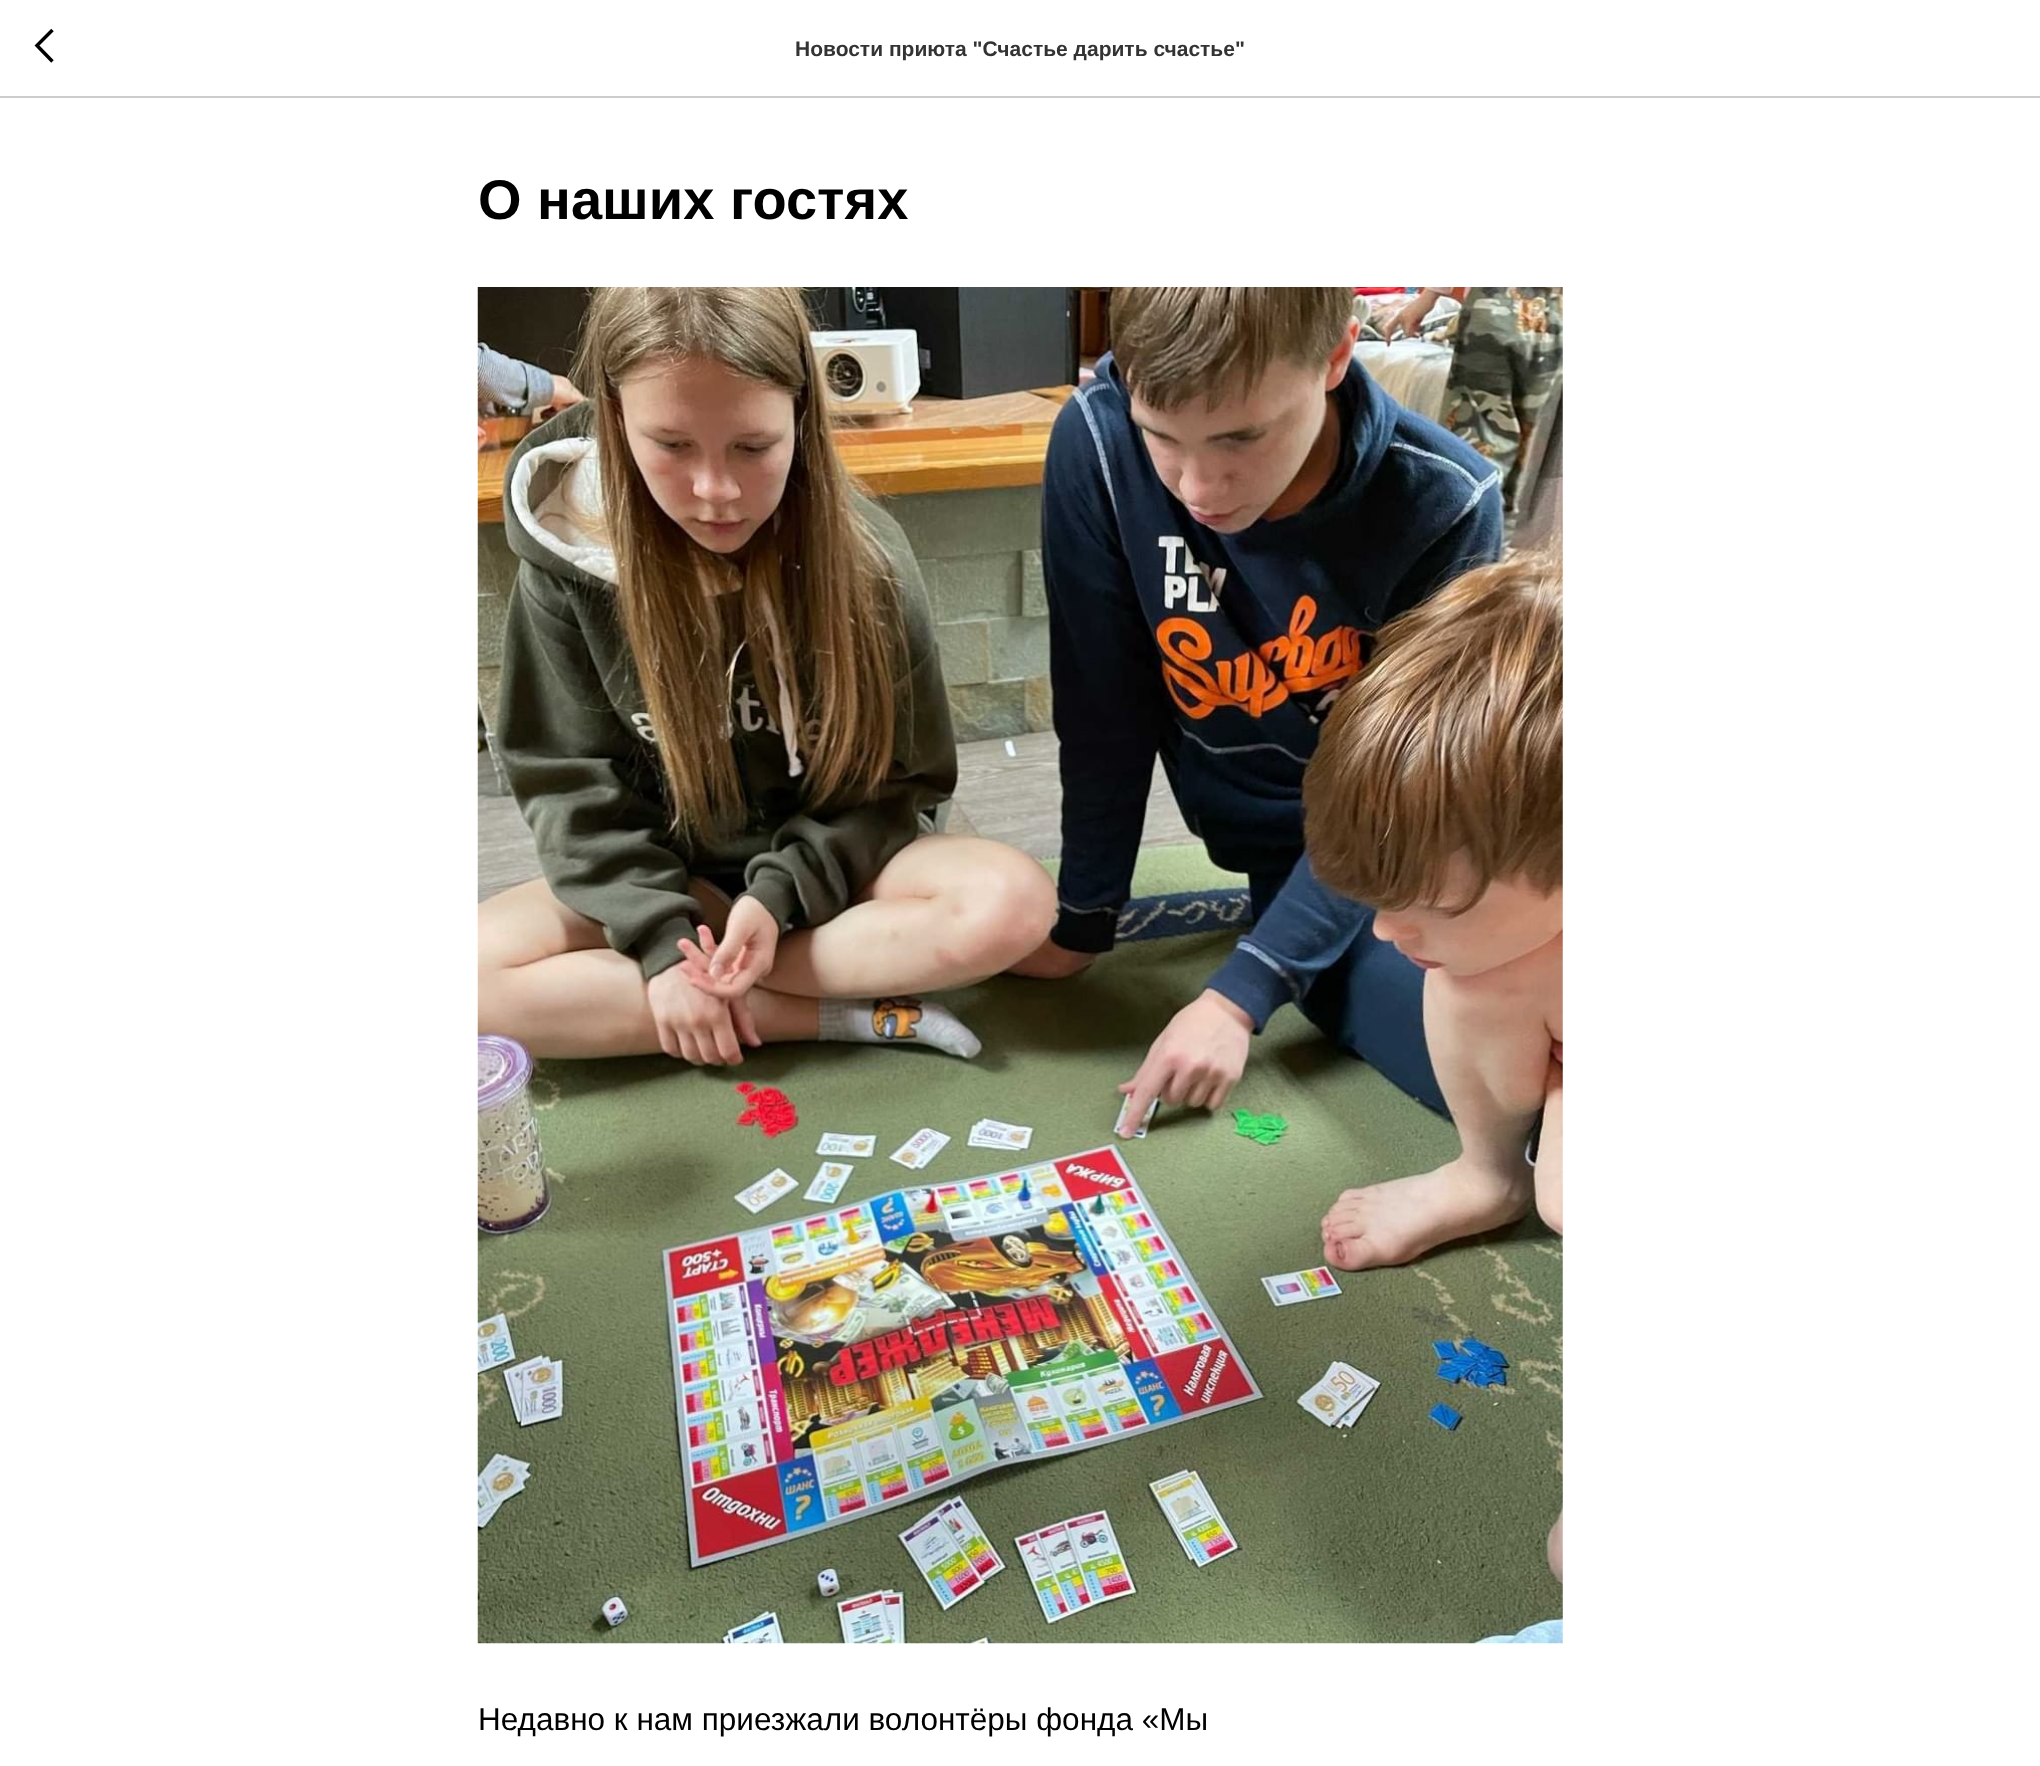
<svg xmlns="http://www.w3.org/2000/svg" width="2040" height="1766" viewBox="0 0 2040 1766">
  <style>
    .t1 { font: bold 21px Liberation Sans; fill: #333; }
    .t2 { font: bold 56px Liberation Sans; fill: #000; }
    .t3 { font: 31.5px Liberation Sans; fill: #000; }
  </style>
  <rect width="100%" height="100%" fill="#fff"/>
  <rect x="0" y="96" width="2040" height="2" fill="#ccc"/>
  <path d="M52.5 61.5L37 45.5L52.5 30" fill="none" stroke="#000" stroke-width="3.5"/>
  <text x="795" y="56" class="t1">Новости приюта "Счастье дарить счастье"</text>
  <text x="478" y="219" class="t2">О наших гостях</text>
  <image x="477" y="287" width="1086" height="1357" href="images/1.png"/>
  <text x="478" y="1730" class="t3">Недавно к нам приезжали волонтёры фонда «Мы</text>
</svg>
